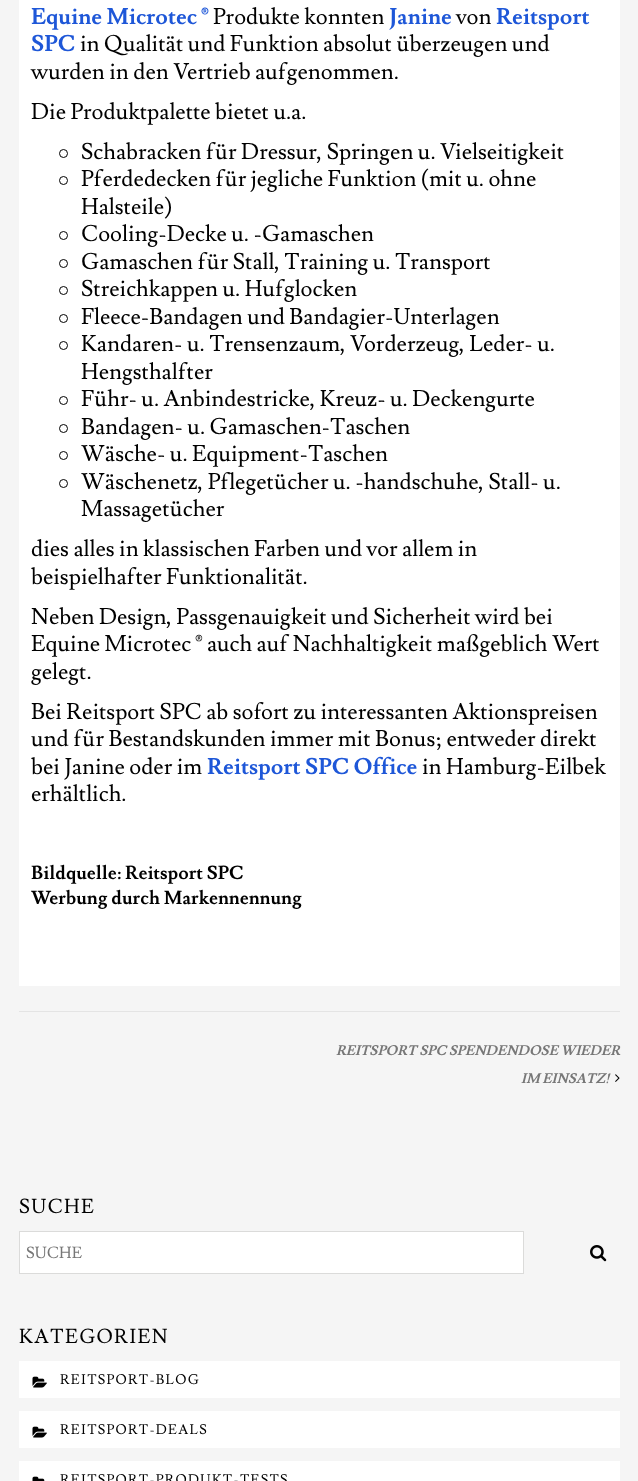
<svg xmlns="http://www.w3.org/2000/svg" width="638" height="1481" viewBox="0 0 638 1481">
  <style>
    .t1 { font: bold 22.5px Lusitana; fill: #1e57d8; }
    .t2 { font: 22.5px Lusitana; fill: #000; }
    .t3 { font: bold 18.75px Lusitana; fill: #000; }
    .t4 { font: italic bold 13.75px Lusitana; fill: #777; }
    .t5 { font: 20px Lusitana; letter-spacing: 1.25px; fill: #000; }
    .t6 { font: 16px Lusitana; fill: #777; }
    .t7 { font: 13.75px Lusitana; letter-spacing: 1.25px; fill: #000; }
  </style>
  <rect width="100%" height="100%" fill="#f5f5f5"/>
  <rect x="19" y="0" width="601" height="986" fill="#fff"/>
  <text x="31" y="24" class="t1">Equine Microtec ®</text>
  <text x="213" y="24" class="t2">Produkte konnten</text>
  <text x="389" y="24" class="t1">Janine</text>
  <text x="456" y="24" class="t2">von</text>
  <text x="496" y="24" class="t1">Reitsport</text>
  <text x="31" y="51" class="t1">SPC</text>
  <text x="80" y="51" class="t2">in Qualität und Funktion absolut überzeugen und</text>
  <text x="31" y="79" class="t2">wurden in den Vertrieb aufgenommen.</text>
  <text x="31" y="119" class="t2">Die Produktpalette bietet u.a.</text>
  <circle cx="63.5" cy="153.5" r="4" fill="none" stroke="#000"/>
  <text x="81" y="159" class="t2">Schabracken für Dressur, Springen u. Vielseitigkeit</text>
  <circle cx="63.5" cy="180.5" r="4" fill="none" stroke="#000"/>
  <text x="81" y="186" class="t2">Pferdedecken für jegliche Funktion (mit u. ohne</text>
  <text x="81" y="214" class="t2">Halsteile)</text>
  <circle cx="63.5" cy="235.5" r="4" fill="none" stroke="#000"/>
  <text x="81" y="241" class="t2">Cooling-Decke u. -Gamaschen</text>
  <circle cx="63.5" cy="263.5" r="4" fill="none" stroke="#000"/>
  <text x="81" y="269" class="t2">Gamaschen für Stall, Training u. Transport</text>
  <circle cx="63.5" cy="290.5" r="4" fill="none" stroke="#000"/>
  <text x="81" y="296" class="t2">Streichkappen u. Hufglocken</text>
  <circle cx="63.5" cy="318.5" r="4" fill="none" stroke="#000"/>
  <text x="81" y="324" class="t2">Fleece-Bandagen und Bandagier-Unterlagen</text>
  <circle cx="63.5" cy="345.5" r="4" fill="none" stroke="#000"/>
  <text x="81" y="351" class="t2">Kandaren- u. Trensenzaum, Vorderzeug, Leder- u.</text>
  <text x="81" y="379" class="t2">Hengsthalfter</text>
  <circle cx="63.5" cy="400.5" r="4" fill="none" stroke="#000"/>
  <text x="81" y="406" class="t2">Führ- u. Anbindestricke, Kreuz- u. Deckengurte</text>
  <circle cx="63.5" cy="428.5" r="4" fill="none" stroke="#000"/>
  <text x="81" y="434" class="t2">Bandagen- u. Gamaschen-Taschen</text>
  <circle cx="63.5" cy="455.5" r="4" fill="none" stroke="#000"/>
  <text x="81" y="461" class="t2">Wäsche- u. Equipment-Taschen</text>
  <circle cx="63.5" cy="483.5" r="4" fill="none" stroke="#000"/>
  <text x="81" y="489" class="t2">Wäschenetz, Pflegetücher u. -handschuhe, Stall- u.</text>
  <text x="81" y="516" class="t2">Massagetücher</text>
  <text x="31" y="556" class="t2">dies alles in klassischen Farben und vor allem in</text>
  <text x="31" y="584" class="t2">beispielhafter Funktionalität.</text>
  <text x="31" y="624" class="t2">Neben Design, Passgenauigkeit und Sicherheit wird bei</text>
  <text x="31" y="651" class="t2">Equine Microtec ® auch auf Nachhaltigkeit maßgeblich Wert</text>
  <text x="31" y="679" class="t2">gelegt.</text>
  <text x="31" y="719" class="t2">Bei Reitsport SPC ab sofort zu interessanten Aktionspreisen</text>
  <text x="31" y="746" class="t2">und für Bestandskunden immer mit Bonus; entweder direkt</text>
  <text x="31" y="774" class="t2">bei Janine oder im</text>
  <text x="207" y="774" class="t1">Reitsport SPC Office</text>
  <text x="422" y="774" class="t2">in Hamburg-Eilbek</text>
  <text x="31" y="801" class="t2">erhältlich.</text>
  <text x="31" y="879" class="t3">Bildquelle: Reitsport SPC</text>
  <text x="31" y="904" class="t3">Werbung durch Markennennung</text>
  <rect x="19" y="1011" width="601" height="1" fill="#e4e4e4"/>
  <text x="336" y="1055" class="t4">REITSPORT SPC SPENDENDOSE WIEDER</text>
  <text x="521" y="1083" class="t4">IM EINSATZ!</text>
  <image x="615" y="1074" width="5" height="8" href="images/1.png"/>
  <text x="19" y="1213" class="t5">SUCHE</text>
  <rect x="19.5" y="1231.5" width="504" height="42" fill="#fff" stroke="#dbdbda"/>
  <text x="26" y="1258" class="t6">SUCHE</text>
  <image x="590" y="1245" width="17" height="17" href="images/2.png"/>
  <text x="19" y="1343" class="t5">KATEGORIEN</text>
  <rect x="19" y="1361" width="601" height="37" fill="#fff"/>
  <image x="32" y="1376" width="15" height="12" href="images/3.png"/>
  <text x="60" y="1384" class="t7">REITSPORT-BLOG</text>
  <rect x="19" y="1411" width="601" height="37" fill="#fff"/>
  <image x="32" y="1426" width="15" height="12" href="images/3.png"/>
  <text x="60" y="1434" class="t7">REITSPORT-DEALS</text>
  <rect x="19" y="1461" width="601" height="20" fill="#fff"/>
  <image x="32" y="1476" width="13" height="5" href="images/4.png"/>
  <text x="60" y="1484" class="t7">REITSPORT-PRODUKT-TESTS</text>
</svg>
